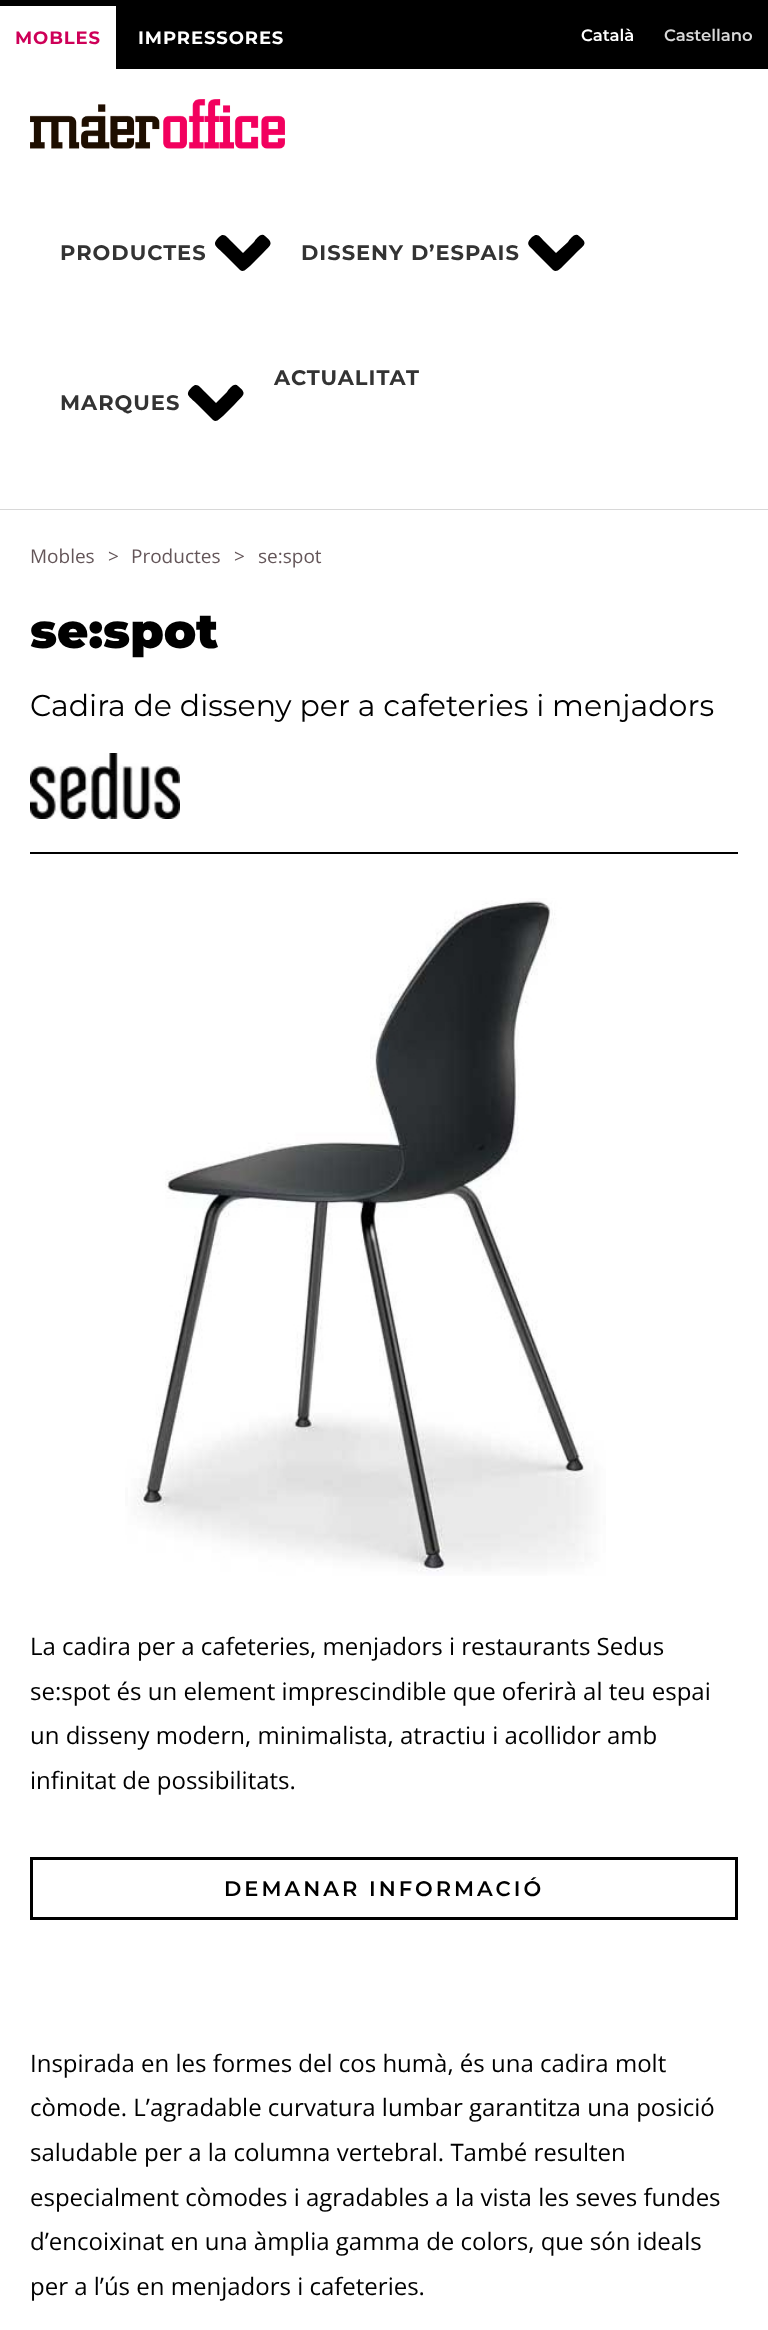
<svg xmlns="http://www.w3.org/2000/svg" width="768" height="2330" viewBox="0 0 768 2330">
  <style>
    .t1 { font: bold 18px Montserrat; letter-spacing: 0.9px; fill: #ce0058; }
    .t2 { font: bold 18px Montserrat; letter-spacing: 0.9px; fill: #fff; }
    .t3 { font: 600 16.5px Montserrat; fill: #fff; }
    .t4 { font: 600 16.5px Montserrat; fill: #d8d8d8; }
    .t5 { font: bold 21px Montserrat; letter-spacing: 1px; fill: #333; }
    .t6 { font: 19px Open Sans; fill: #645659; }
    .t7 { font: 900 48px Montserrat; fill: #000; }
    .t8 { font: 30px Montserrat; fill: #000; }
    .t9 { font: 24px Open Sans; fill: #000; }
    .t10 { font: 600 21px Montserrat; letter-spacing: 3px; fill: #000; }
  </style>
  <rect width="100%" height="100%" fill="#fff"/>
  <rect x="0" y="0" width="768" height="69" fill="#000"/>
  <rect x="0" y="6" width="116" height="63" fill="#fff"/>
  <text x="15" y="44" class="t1">MOBLES</text>
  <text x="138" y="44" class="t2">IMPRESSORES</text>
  <text x="581" y="41" class="t3">Català</text>
  <text x="664" y="41" class="t4">Castellano</text>
  <rect x="0" y="509" width="768" height="1" fill="#d8d8d8"/>
  <image x="30" y="99" width="255" height="50" href="images/1.png"/>
  <text x="60" y="260" class="t5">PRODUCTES</text>
  <path d="M240 270L224 254C216 246 211 245 219 237C224 232 227 237 232 242L243 253L254 242C256 239 261 232 265 236C275 244 270 245 262 254L250 266C247 268 244 273 240 270Z" fill="#000"/>
  <text x="301" y="260" class="t5">DISSENY D’ESPAIS</text>
  <path d="M553 270L537 254C530 246 524 245 532 237C538 232 540 237 545 242L556 253L568 242C570 239 575 232 579 236C589 244 584 245 575 254L563 266C561 268 557 273 553 270Z" fill="#000"/>
  <text x="274" y="385" class="t5">ACTUALITAT</text>
  <text x="60" y="410" class="t5">MARQUES</text>
  <path d="M213 420L197 404C189 396 184 395 192 387C197 382 200 387 205 392L216 403L227 392C229 389 234 382 238 386C248 394 243 395 235 404L223 416C220 418 217 423 213 420Z" fill="#000"/>
  <text x="30" y="563" class="t6">Mobles</text>
  <text x="108" y="563" class="t6">&gt;</text>
  <text x="131" y="563" class="t6">Productes</text>
  <text x="234" y="563" class="t6">&gt;</text>
  <text x="258" y="563" class="t6">se:spot</text>
  <text x="30" y="648" class="t7">se:spot</text>
  <text x="30" y="716" class="t8">Cadira de disseny per a cafeteries i menjadors</text>
  <image x="30" y="753" width="150" height="66" href="images/2.png"/>
  <rect x="30" y="852" width="708" height="2" fill="#000"/>
  <image x="125" y="898" width="481" height="678" href="images/3.png"/>
  <text x="30" y="1655" class="t9">La cadira per a cafeteries, menjadors i restaurants Sedus</text>
  <text x="30" y="1700" class="t9">se:spot és un element imprescindible que oferirà al teu espai</text>
  <text x="30" y="1744" class="t9">un disseny modern, minimalista, atractiu i acollidor amb</text>
  <text x="30" y="1789" class="t9">infinitat de possibilitats.</text>
  <rect x="31.5" y="1858.5" width="705" height="60" fill="none" stroke="#000" stroke-width="3"/>
  <text x="224" y="1896" class="t10">DEMANAR INFORMACIÓ</text>
  <text x="30" y="2072" class="t9">Inspirada en les formes del cos humà, és una cadira molt</text>
  <text x="30" y="2116" class="t9">còmode. L’agradable curvatura lumbar garantitza una posició</text>
  <text x="30" y="2161" class="t9">saludable per a la columna vertebral. També resulten</text>
  <text x="30" y="2206" class="t9">especialment còmodes i agradables a la vista les seves fundes</text>
  <text x="30" y="2250" class="t9">d’encoixinat en una àmplia gamma de colors, que són ideals</text>
  <text x="30" y="2295" class="t9">per a l’ús en menjadors i cafeteries.</text>
</svg>
